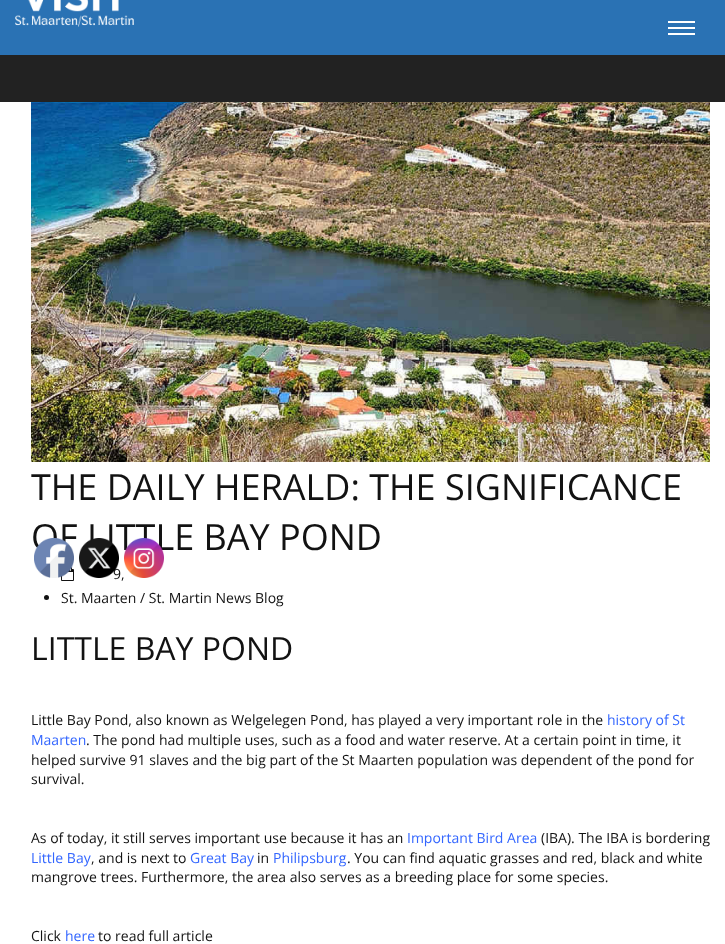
<svg xmlns="http://www.w3.org/2000/svg" width="725" height="944" viewBox="0 0 725 944">
  <style>
    .t1 { font: 36px Open Sans; fill: #121212; }
    .t2 { font: 14px Open Sans; fill: #121212; }
    .t3 { font: 32px Open Sans; fill: #121212; }
    .t4 { font: 14px Open Sans; fill: #36f; }
  </style>
  <rect width="100%" height="100%" fill="#fff"/>
  <rect x="0" y="0" width="725" height="55" fill="#2a72b4"/>
  <image x="15" y="0" width="119" height="27" href="images/1.png"/>
  <rect x="668" y="21" width="27" height="2" fill="#fff"/>
  <rect x="668" y="27" width="27" height="2" fill="#fff"/>
  <rect x="668" y="33" width="27" height="2" fill="#fff"/>
  <rect x="0" y="55" width="725" height="47" fill="#222"/>
  <image x="31" y="102" width="679" height="360" href="images/2.png"/>
  <text x="31" y="500" class="t1">THE DAILY HERALD: THE SIGNIFICANCE</text>
  <text x="31" y="550" class="t1">OF LITTLE BAY POND</text>
  <image x="61" y="567" width="13" height="14" href="images/3.png"/>
  <text x="113" y="579" class="t2">9,</text>
  <circle cx="46.5" cy="597.5" r="2.5" fill="#121212"/>
  <text x="61" y="603" class="t2">St. Maarten / St. Martin News Blog</text>
  <text x="31" y="660" class="t3">LITTLE BAY POND</text>
  <text x="31" y="725" class="t2">Little Bay Pond, also known as Welgelegen Pond, has played a very important role in the</text>
  <text x="607" y="725" class="t4">history of St</text>
  <text x="31" y="745" class="t4">Maarten</text>
  <text x="86" y="745" class="t2">. The pond had multiple uses, such as a food and water reserve. At a certain point in time, it</text>
  <text x="31" y="765" class="t2">helped survive 91 slaves and the big part of the St Maarten population was dependent of the pond for</text>
  <text x="31" y="784" class="t2">survival.</text>
  <text x="31" y="843" class="t2">As of today, it still serves important use because it has an</text>
  <text x="407" y="843" class="t4">Important Bird Area</text>
  <text x="541" y="843" class="t2">(IBA). The IBA is bordering</text>
  <text x="31" y="863" class="t4">Little Bay</text>
  <text x="91" y="863" class="t2">, and is next to</text>
  <text x="190" y="863" class="t4">Great Bay</text>
  <text x="257" y="863" class="t2">in</text>
  <text x="273" y="863" class="t4">Philipsburg</text>
  <text x="347" y="863" class="t2">. You can find aquatic grasses and red, black and white</text>
  <text x="31" y="882" class="t2">mangrove trees. Furthermore, the area also serves as a breeding place for some species.</text>
  <text x="31" y="941" class="t2">Click</text>
  <text x="65" y="941" class="t4">here</text>
  <text x="98" y="941" class="t2">to read full article</text>
  <image x="34" y="538" width="40" height="40" href="images/4.png"/>
  <image x="79" y="538" width="40" height="40" href="images/5.png"/>
  <image x="124" y="538" width="40" height="40" href="images/6.png"/>
</svg>
